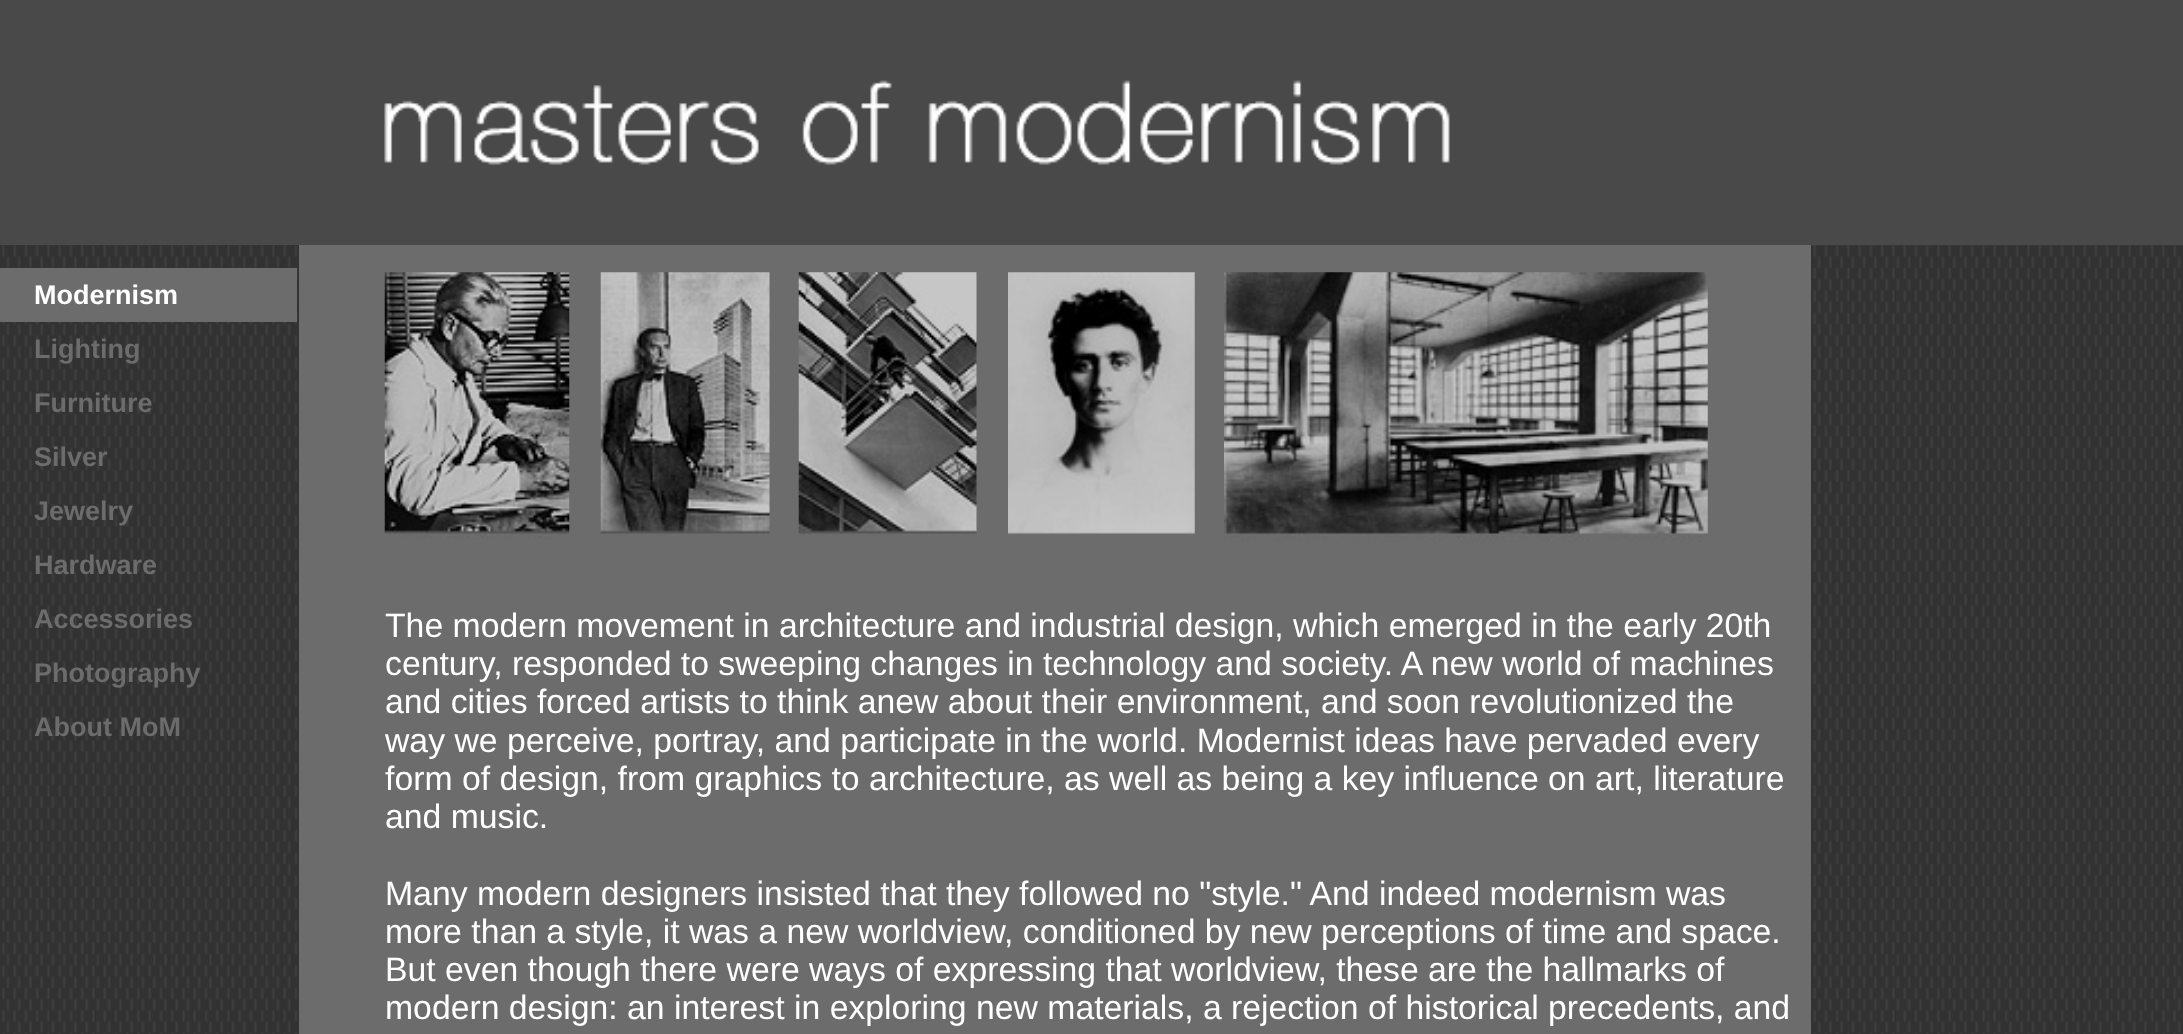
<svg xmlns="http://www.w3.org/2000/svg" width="2183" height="1034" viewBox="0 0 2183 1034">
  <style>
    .t1 { font: bold 27px Liberation Sans; fill: #fff; }
    .t2 { font: bold 27px Liberation Sans; fill: #6c6c6c; }
    .t3 { font: 33.75px Liberation Sans; fill: #fff; }
  </style>
  <rect width="100%" height="100%" fill="#494949"/>
  <image x="384" y="80" width="1066" height="85" href="images/1.png"/>
  <image x="0" y="245" width="2183" height="789" href="images/2.png"/>
  <image x="0" y="245" width="299" height="789" href="images/3.png"/>
  <rect x="0" y="268" width="297" height="54" fill="#6c6c6c"/>
  <text x="34" y="304" class="t1">Modernism</text>
  <text x="34" y="358" class="t2">Lighting</text>
  <text x="34" y="412" class="t2">Furniture</text>
  <text x="34" y="466" class="t2">Silver</text>
  <text x="34" y="520" class="t2">Jewelry</text>
  <text x="34" y="574" class="t2">Hardware</text>
  <text x="34" y="628" class="t2">Accessories</text>
  <text x="34" y="682" class="t2">Photography</text>
  <text x="34" y="736" class="t2">About MoM</text>
  <rect x="299" y="245" width="1512" height="789" fill="#6c6c6c"/>
  <image x="384" y="272" width="186" height="267" href="images/4.png"/>
  <image x="600" y="272" width="170" height="262" href="images/5.png"/>
  <image x="798" y="272" width="179" height="263" href="images/6.png"/>
  <image x="1008" y="272" width="187" height="262" href="images/7.png"/>
  <image x="1224" y="272" width="484" height="270" href="images/8.png"/>
  <text x="385" y="637" class="t3">The modern movement in architecture and industrial design, which emerged in the early 20th</text>
  <text x="385" y="675" class="t3">century, responded to sweeping changes in technology and society. A new world of machines</text>
  <text x="385" y="713" class="t3">and cities forced artists to think anew about their environment, and soon revolutionized the</text>
  <text x="385" y="752" class="t3">way we perceive, portray, and participate in the world. Modernist ideas have pervaded every</text>
  <text x="385" y="790" class="t3">form of design, from graphics to architecture, as well as being a key influence on art, literature</text>
  <text x="385" y="828" class="t3">and music.</text>
  <text x="385" y="905" class="t3">Many modern designers insisted that they followed no "style." And indeed modernism was</text>
  <text x="385" y="943" class="t3">more than a style, it was a new worldview, conditioned by new perceptions of time and space.</text>
  <text x="385" y="981" class="t3">But even though there were ways of expressing that worldview, these are the hallmarks of</text>
  <text x="385" y="1019" class="t3">modern design: an interest in exploring new materials, a rejection of historical precedents, and</text>
</svg>
